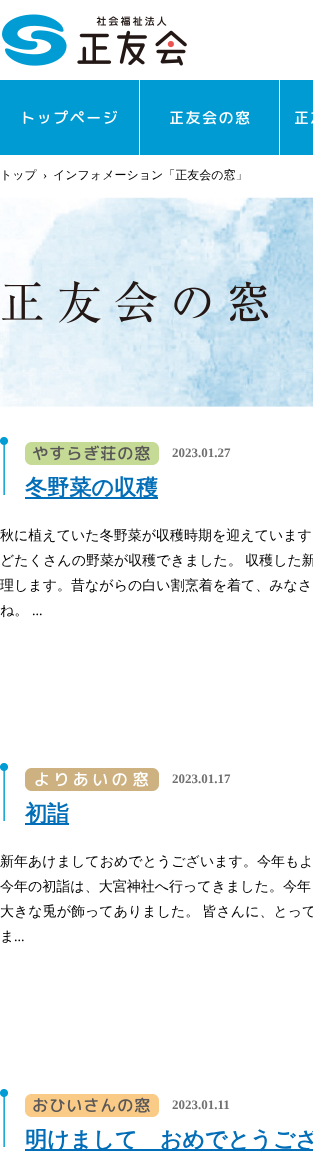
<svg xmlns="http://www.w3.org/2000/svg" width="313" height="1171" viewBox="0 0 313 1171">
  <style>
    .t1 { font: 500 12px WenQuanYi Zen Hei; fill: #000; }
    .t2 { font: 12px Liberation Serif; fill: #000; }
    .t3 { font: bold 13px Liberation Serif; fill: #727171; }
    .t4 { font: bold 22.1px WenQuanYi Zen Hei; fill: #036eb8; }
    .t5 { font: 500 14px WenQuanYi Zen Hei; fill: #000; }
    .t6 { font: 14px Liberation Serif; fill: #000; }
  </style>
  <rect width="100%" height="100%" fill="#fff"/>
  <image x="2" y="14" width="185" height="52" href="images/1.png"/>
  <rect x="0" y="80" width="313" height="75" fill="#009bd2"/>
  <rect x="139" y="80" width="1" height="75" fill="#fff"/>
  <image x="23" y="110" width="95" height="14" href="images/2.png"/>
  <rect x="279" y="80" width="1" height="75" fill="#fff"/>
  <image x="170" y="110" width="80" height="15" href="images/3.png"/>
  <image x="294" y="111" width="19" height="13" href="images/4.png"/>
  <text x="0" y="179" class="t1">トップ</text>
  <text x="43" y="179" class="t2">›</text>
  <text x="53" y="179" class="t1">インフォメーション「正友会の窓」</text>
  <image x="0" y="197" width="313" height="210" href="images/5.png"/>
  <image x="2" y="281" width="266" height="42" href="images/6.png"/>
  <image x="0" y="437" width="8" height="58" href="images/7.png"/>
  <image x="25" y="442" width="134" height="23" href="images/8.png"/>
  <text x="172" y="457" class="t3">2023.01.27</text>
  <rect x="25" y="497" width="133" height="2" fill="#036eb8"/>
  <text x="25" y="495" class="t4">冬野菜の収穫</text>
  <text x="0" y="540" class="t5">秋に植えていた冬野菜が収穫時期を迎えています</text>
  <text x="0" y="565" word-spacing="-1" class="t5">どたくさんの野菜が収穫できました。 収穫した新</text>
  <text x="0" y="590" class="t5">理します。昔ながらの白い割烹着を着て、みなさ</text>
  <text x="0" y="615" class="t5">ね。</text>
  <text x="32" y="615" class="t6">...</text>
  <image x="0" y="763" width="8" height="58" href="images/7.png"/>
  <image x="25" y="768" width="134" height="23" href="images/9.png"/>
  <text x="172" y="783" class="t3">2023.01.17</text>
  <rect x="25" y="823" width="44" height="2" fill="#036eb8"/>
  <text x="25" y="821" class="t4">初詣</text>
  <text x="0" y="866" class="t5">新年あけましておめでとうございます。今年もよ</text>
  <text x="0" y="891" class="t5">今年の初詣は、大宮神社へ行ってきました。今年</text>
  <text x="0" y="916" word-spacing="-1" class="t5">大きな兎が飾ってありました。 皆さんに、とって</text>
  <text x="0" y="941" class="t5">ま</text>
  <text x="14" y="941" class="t6">...</text>
  <image x="0" y="1089" width="8" height="58" href="images/7.png"/>
  <image x="25" y="1094" width="134" height="23" href="images/10.png"/>
  <text x="172" y="1109" class="t3">2023.01.11</text>
  <rect x="25" y="1149" width="288" height="2" fill="#036eb8"/>
  <text x="25" y="1147" class="t4">明けまして　おめでとうござ</text>
</svg>
